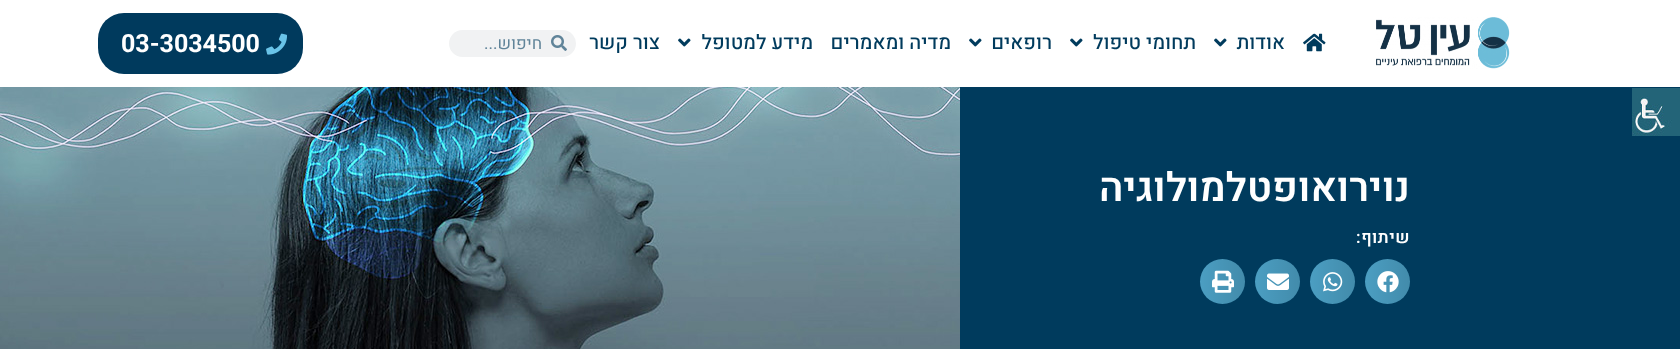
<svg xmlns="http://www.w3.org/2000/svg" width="1680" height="349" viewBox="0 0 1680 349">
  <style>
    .t1 { font: 500 20px Heebo; direction: rtl; fill: #003b5d; }
    .t2 { font: 17px Heebo; direction: rtl; fill: #608499; }
    .t3 { font: bold 25px Roboto; fill: #fff; }
    .t4 { font: 600 40px Heebo; direction: rtl; fill: #fff; }
    .t5 { font: 600 17px Heebo; letter-spacing: 0.5px; direction: rtl; fill: #fff; }
  </style>
  <defs>
    <linearGradient id="g1" gradientUnits="userSpaceOnUse" x1="1410" y1="282" x2="1365" y2="282"><stop offset="0" stop-color="#000" stop-opacity="0.12"/><stop offset="1" stop-color="#000" stop-opacity="0"/></linearGradient>
    <linearGradient id="g2" gradientUnits="userSpaceOnUse" x1="1355" y1="282" x2="1310" y2="282"><stop offset="0" stop-color="#000" stop-opacity="0.12"/><stop offset="1" stop-color="#000" stop-opacity="0"/></linearGradient>
    <linearGradient id="g3" gradientUnits="userSpaceOnUse" x1="1300" y1="282" x2="1255" y2="282"><stop offset="0" stop-color="#000" stop-opacity="0.12"/><stop offset="1" stop-color="#000" stop-opacity="0"/></linearGradient>
    <linearGradient id="g4" gradientUnits="userSpaceOnUse" x1="1245" y1="282" x2="1200" y2="282"><stop offset="0" stop-color="#000" stop-opacity="0.12"/><stop offset="1" stop-color="#000" stop-opacity="0"/></linearGradient>
  </defs>
  <rect width="100%" height="100%" fill="#003b5d"/>
  <rect x="0" y="0" width="1680" height="87" fill="#fff"/>
  <image x="1376" y="17" width="134" height="52" href="images/1.png"/>
  <image x="1303" y="33" width="23" height="19" href="images/2.png"/>
  <text x="1285" y="49" class="t1">אודות</text>
  <image x="1214" y="38" width="13" height="9" href="images/3.png"/>
  <text x="1196" y="49" class="t1">תחומי טיפול</text>
  <image x="1070" y="38" width="13" height="9" href="images/3.png"/>
  <text x="1052" y="49" class="t1">רופאים</text>
  <image x="969" y="38" width="13" height="9" href="images/3.png"/>
  <text x="951" y="49" class="t1">מדיה ומאמרים</text>
  <text x="813" y="49" class="t1">מידע למטופל</text>
  <image x="678" y="38" width="13" height="9" href="images/3.png"/>
  <text x="660" y="49" class="t1">צור קשר</text>
  <rect x="449" y="30" width="127" height="27" rx="13.5" fill="#f1f2f3"/>
  <image x="551" y="35" width="16" height="16" href="images/4.png"/>
  <text x="542" y="49" class="t2">חיפוש...</text>
  <rect x="98" y="13" width="205" height="61" rx="26" fill="#003a5d"/>
  <image x="266" y="33" width="21" height="22" href="images/5.png"/>
  <text x="121" y="52" class="t3">03-3034500</text>
  <image x="1632" y="88" width="48" height="48" href="images/6.png"/>
  <image x="0" y="87" width="960" height="262" href="images/7.png"/>
  <text x="1410" y="201" class="t4">נוירואופטלמולוגיה</text>
  <text x="1410" y="243" class="t5">שיתוף:</text>
  <circle cx="1387.5" cy="281.5" r="22.5" fill="#4b9ec2"/>
  <circle cx="1387.5" cy="281.5" r="22.5" fill="url(#g1)"/>
  <image x="1377" y="271" width="22" height="22" href="images/8.png"/>
  <circle cx="1332.5" cy="281.5" r="22.5" fill="#4b9ec2"/>
  <circle cx="1332.5" cy="281.5" r="22.5" fill="url(#g2)"/>
  <image x="1323" y="272" width="20" height="20" href="images/9.png"/>
  <circle cx="1277.5" cy="281.5" r="22.5" fill="#4b9ec2"/>
  <circle cx="1277.5" cy="281.5" r="22.5" fill="url(#g3)"/>
  <image x="1267" y="273" width="22" height="17" href="images/10.png"/>
  <circle cx="1222.5" cy="281.5" r="22.5" fill="#4b9ec2"/>
  <circle cx="1222.5" cy="281.5" r="22.5" fill="url(#g4)"/>
  <image x="1212" y="270" width="22" height="23" href="images/11.png"/>
</svg>
